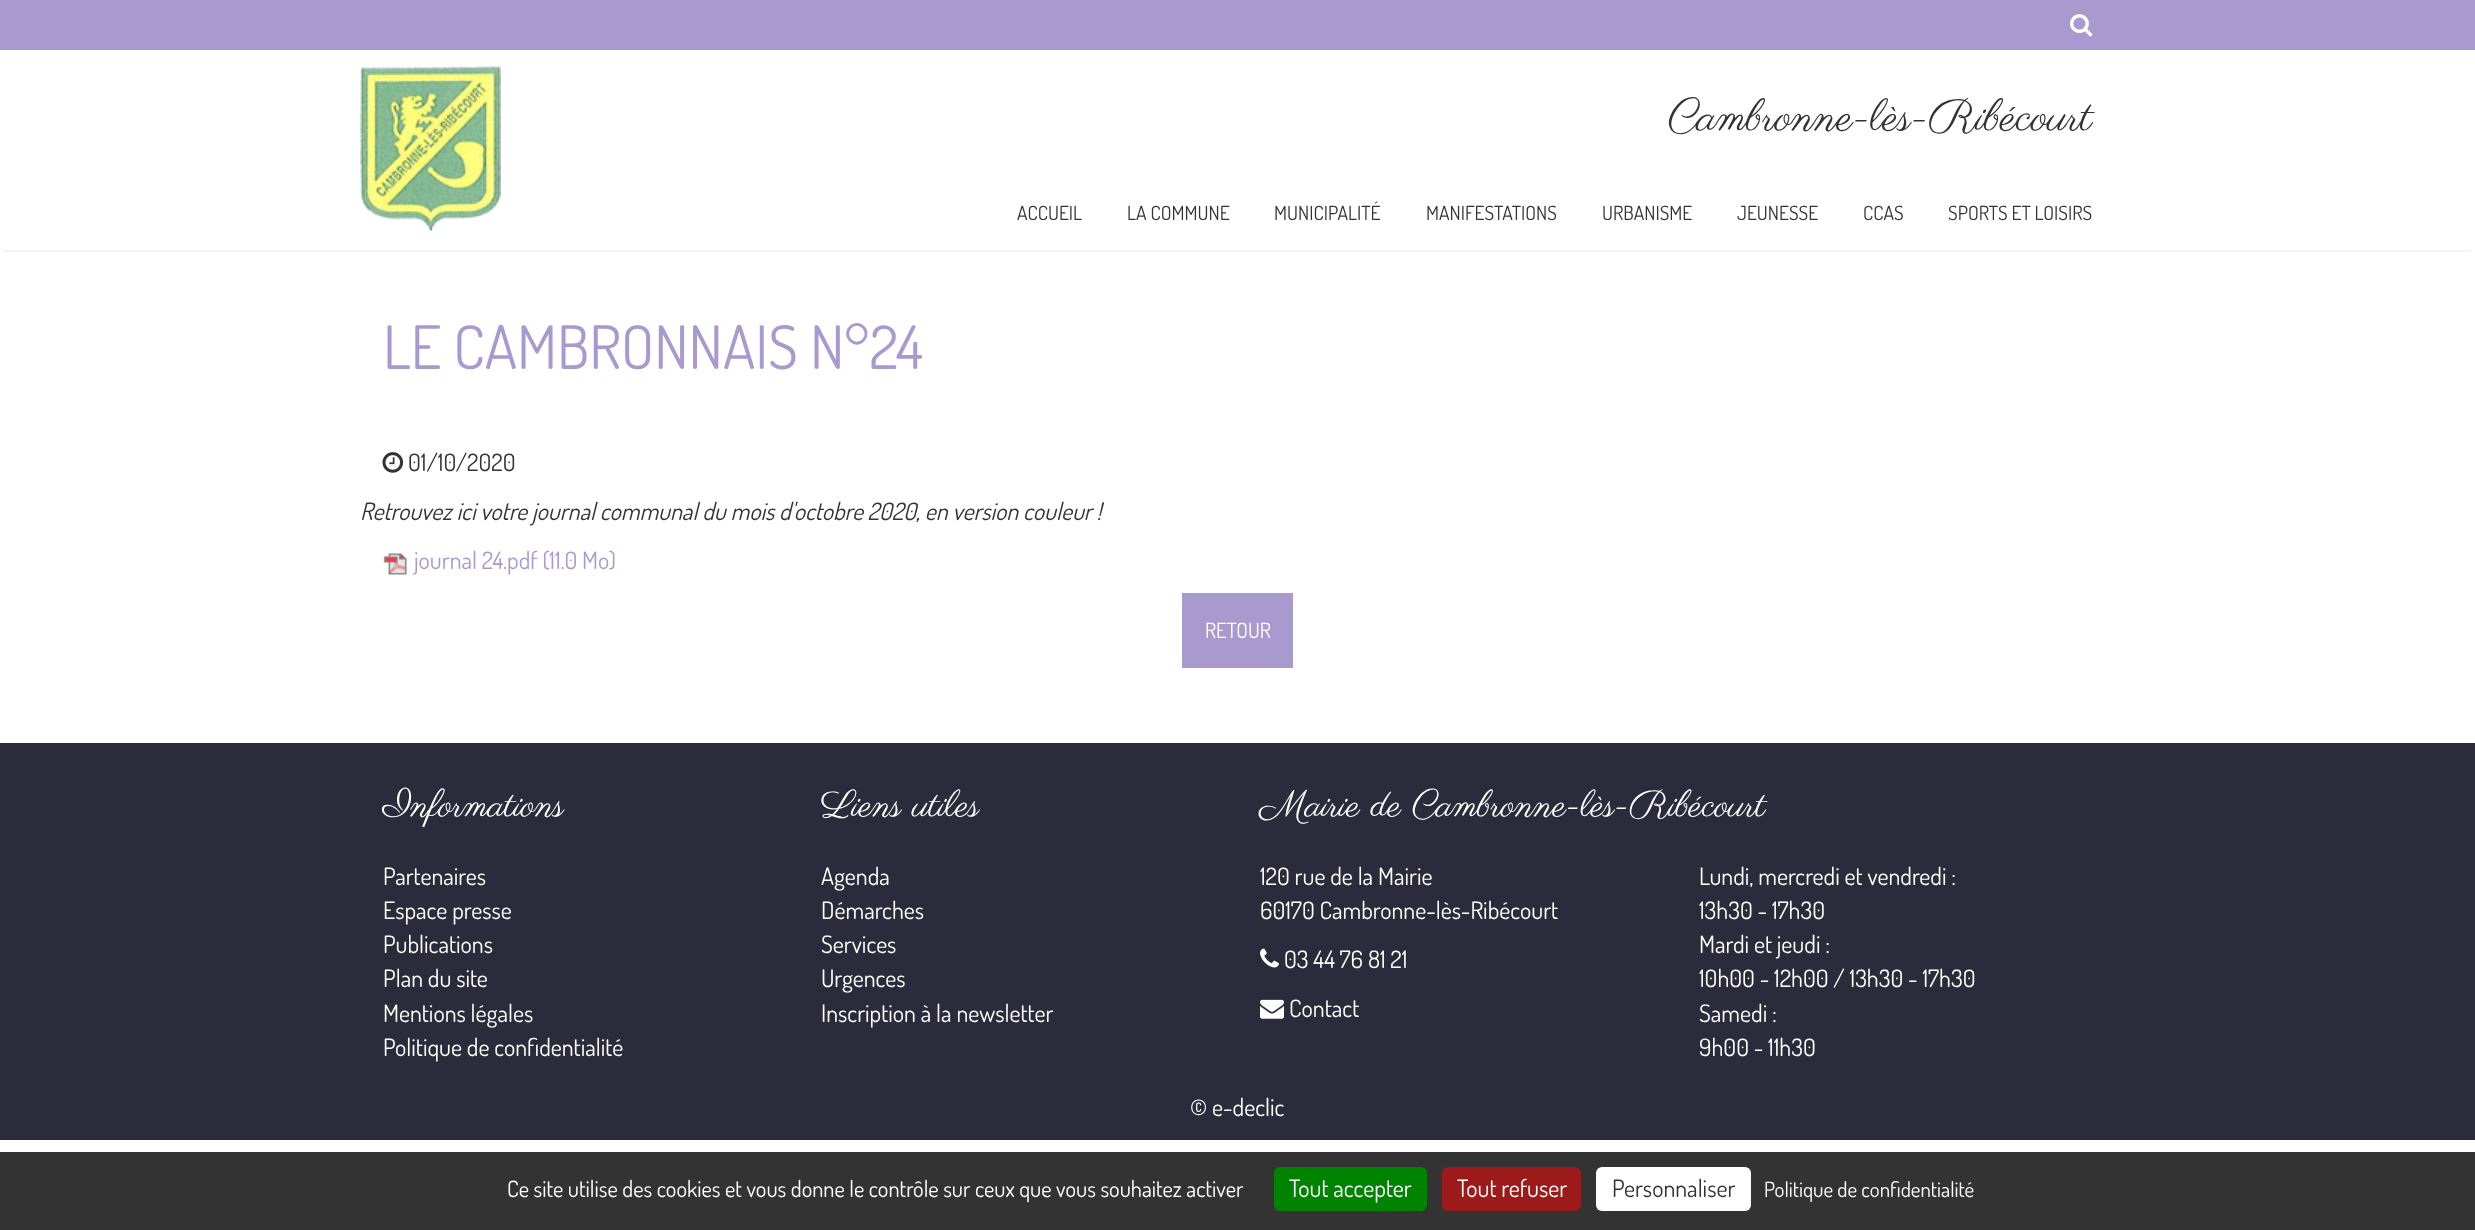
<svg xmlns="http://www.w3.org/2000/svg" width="2475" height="1230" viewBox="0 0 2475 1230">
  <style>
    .t1 { font: 45px Parisienne; fill: #333; }
    .t2 { font: 19.5px Dosis; fill: #333; }
    .t3 { font: 60px Dosis; fill: #a89acf; }
    .t4 { font: 24px Dosis; fill: #333; }
    .t5 { font: italic 24px Dosis; fill: #333; }
    .t6 { font: 24px Dosis; fill: #a89acf; }
    .t7 { font: 21px Dosis; fill: #fff; }
    .t8 { font: 37.5px Parisienne; fill: #fff; }
    .t9 { font: 24px Dosis; fill: #fff; }
    .t10 { font: 22.5px Dosis; fill: #fff; }
  </style>
  <rect width="100%" height="100%" fill="#fff"/>
  <rect x="0" y="0" width="2475" height="50" fill="#a89acf"/>
  <image x="2070" y="14" width="23" height="23" href="images/1.png"/>
  <path d="M2472.5 249.5C2471.5 250.5 2470.5 251 2469 251H6C4.5 251 3.5 250.5 2.5 249.5" fill="none" stroke="#f1f1f1" stroke-width="1.5"/>
  <image x="360" y="66" width="141" height="165" href="images/2.png"/>
  <text x="1668" y="130" class="t1">Cambronne-lès-Ribécourt</text>
  <text x="1017" y="220" class="t2">ACCUEIL</text>
  <text x="1127" y="220" class="t2">LA COMMUNE</text>
  <text x="1274" y="220" class="t2">MUNICIPALITÉ</text>
  <text x="1426" y="220" class="t2">MANIFESTATIONS</text>
  <text x="1602" y="220" class="t2">URBANISME</text>
  <text x="1737" y="220" class="t2">JEUNESSE</text>
  <text x="1863" y="220" class="t2">CCAS</text>
  <text x="1948" y="220" class="t2">SPORTS ET LOISIRS</text>
  <text x="383" y="369" class="t3">LE CAMBRONNAIS N°24</text>
  <image x="382" y="452" width="22" height="21" href="images/3.png"/>
  <text x="408" y="471" class="t4">01/10/2020</text>
  <text x="360" y="520" class="t5">Retrouvez ici votre journal communal du mois d'octobre 2020, en version couleur !</text>
  <image x="383" y="553" width="24" height="22" href="images/4.png"/>
  <text x="414" y="569" class="t6">journal 24.pdf (11.0 Mo)</text>
  <rect x="1182" y="593" width="111" height="75" fill="#a89acf"/>
  <text x="1205" y="638" class="t7">RETOUR</text>
  <rect x="0" y="743" width="2475" height="397" fill="#2c2b3c"/>
  <text x="383" y="816" class="t8">Informations</text>
  <text x="383" y="885" class="t9">Partenaires</text>
  <text x="383" y="919" class="t9">Espace presse</text>
  <text x="383" y="953" class="t9">Publications</text>
  <text x="383" y="987" class="t9">Plan du site</text>
  <text x="383" y="1022" class="t9">Mentions légales</text>
  <text x="383" y="1056" class="t9">Politique de confidentialité</text>
  <text x="821" y="816" class="t8">Liens utiles</text>
  <text x="821" y="885" class="t9">Agenda</text>
  <text x="821" y="919" class="t9">Démarches</text>
  <text x="821" y="953" class="t9">Services</text>
  <text x="821" y="987" class="t9">Urgences</text>
  <text x="821" y="1022" class="t9">Inscription à la newsletter</text>
  <text x="1260" y="816" class="t8">Mairie de Cambronne-lès-Ribécourt</text>
  <text x="1260" y="885" class="t9">120 rue de la Mairie</text>
  <text x="1260" y="919" class="t9">60170 Cambronne-lès-Ribécourt</text>
  <image x="1260" y="948" width="19" height="20" href="images/5.png"/>
  <text x="1284" y="968" class="t9">03 44 76 81 21</text>
  <image x="1260" y="999" width="24" height="20" href="images/6.png"/>
  <text x="1289" y="1017" class="t9">Contact</text>
  <text x="1699" y="885" class="t9">Lundi, mercredi et vendredi :</text>
  <text x="1699" y="919" class="t9">13h30 - 17h30</text>
  <text x="1699" y="953" class="t9">Mardi et jeudi :</text>
  <text x="1699" y="987" class="t9">10h00 - 12h00 / 13h30 - 17h30</text>
  <text x="1699" y="1022" class="t9">Samedi :</text>
  <text x="1699" y="1056" class="t9">9h00 - 11h30</text>
  <text x="1190" y="1116" class="t9">© e-declic</text>
  <rect x="0" y="1152" width="2475" height="78" fill="#333"/>
  <text x="507" y="1197" class="t10">Ce site utilise des cookies et vous donne le contrôle sur ceux que vous souhaitez activer</text>
  <rect x="1274" y="1167" width="153" height="44" rx="6" fill="#008300"/>
  <text x="1289" y="1197" class="t9">Tout accepter</text>
  <rect x="1442" y="1167" width="139" height="44" rx="6" fill="#9c1a1a"/>
  <text x="1457" y="1197" class="t9">Tout refuser</text>
  <rect x="1596" y="1167" width="155" height="44" rx="6" fill="#fff"/>
  <text x="1612" y="1197" class="t4">Personnaliser</text>
  <text x="1764" y="1197" class="t7">Politique de confidentialité</text>
</svg>
